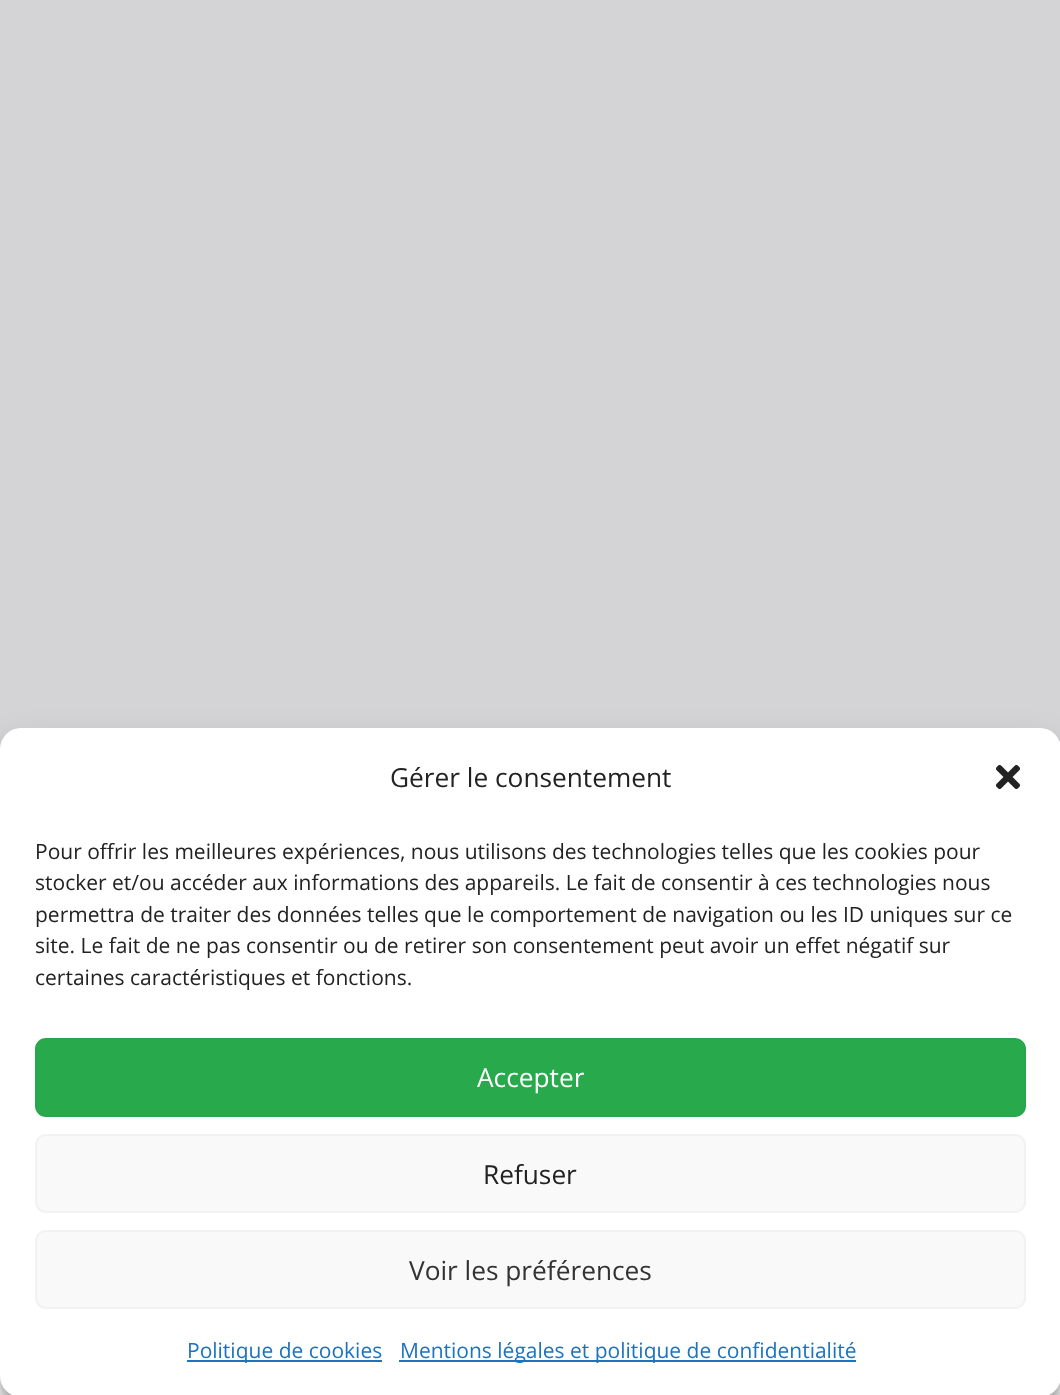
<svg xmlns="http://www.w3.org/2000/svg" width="1060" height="1395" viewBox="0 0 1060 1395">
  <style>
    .t1 { font: 26.25px Open Sans; fill: #222; }
    .t2 { font: 21px Open Sans; fill: #222; }
    .t3 { font: 26.25px Open Sans; fill: #fff; }
    .t4 { font: 26.25px Open Sans; fill: #333; }
    .t5 { font: 21px Open Sans; fill: #1e73be; }
  </style>
  <rect width="100%" height="100%" fill="#fff"/>
  <rect x="0" y="0" width="1060" height="749" fill="#d4d4d7"/>
  <rect x="0" y="739" width="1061" height="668" rx="21" fill="#0000003b" filter="blur(5px)"/>
  <rect x="0" y="746" width="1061" height="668" rx="21" fill="#00000030" filter="blur(17.5px)"/>
  <rect x="0" y="728" width="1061" height="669" rx="21" fill="#fff"/>
  <text x="390" y="787" class="t1">Gérer le consentement</text>
  <image x="996" y="765" width="24" height="24" href="images/1.png"/>
  <text x="35" y="859" class="t2">Pour offrir les meilleures expériences, nous utilisons des technologies telles que les cookies pour</text>
  <text x="35" y="890" class="t2">stocker et/ou accéder aux informations des appareils. Le fait de consentir à ces technologies nous</text>
  <text x="35" y="922" class="t2">permettra de traiter des données telles que le comportement de navigation ou les ID uniques sur ce</text>
  <text x="35" y="953" class="t2">site. Le fait de ne pas consentir ou de retirer son consentement peut avoir un effet négatif sur</text>
  <text x="35" y="985" class="t2">certaines caractéristiques et fonctions.</text>
  <rect x="36" y="1039" width="989" height="77" rx="10" fill="#28aa4c" stroke="#27a64b" stroke-width="2"/>
  <text x="477" y="1087" class="t3">Accepter</text>
  <rect x="36" y="1135" width="989" height="77" rx="10" fill="#f9f9f9" stroke="#f2f2f2" stroke-width="2"/>
  <text x="483" y="1184" class="t1">Refuser</text>
  <rect x="36" y="1231" width="989" height="77" rx="10" fill="#f9f9f9" stroke="#f2f2f2" stroke-width="2"/>
  <text x="409" y="1280" class="t4">Voir les préférences</text>
  <rect x="187" y="1360" width="195" height="2" fill="#1e73be"/>
  <text x="187" y="1358" class="t5">Politique de cookies</text>
  <rect x="399" y="1360" width="457" height="2" fill="#1e73be"/>
  <text x="400" y="1358" class="t5">Mentions légales et politique de confidentialité</text>
</svg>
